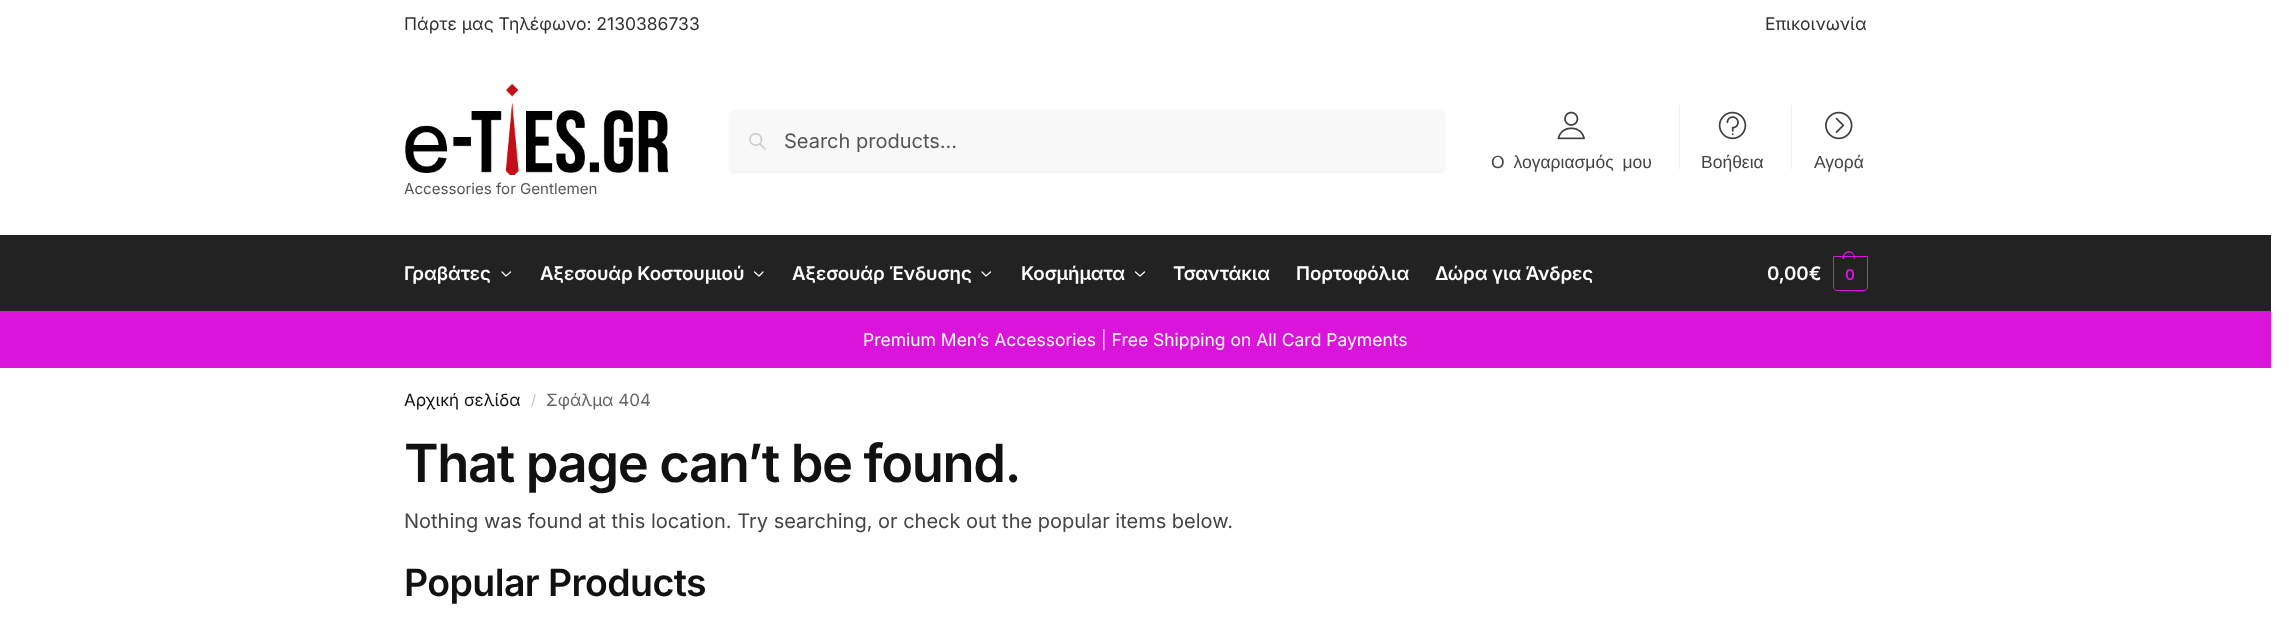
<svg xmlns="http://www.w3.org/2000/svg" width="2289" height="629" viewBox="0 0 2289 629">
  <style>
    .t1 { font: 17.5px Inter; fill: #323232; }
    .t2 { font: 20px Inter; fill: #555; }
    .t3 { font: 17.5px Liberation Sans; fill: #444; }
    .t4 { font: 15.1px Inter; fill: #555; }
    .t5 { font: 600 18.75px Inter; letter-spacing: -0.1px; fill: #fff; }
    .t6 { font: 600 15px Inter; letter-spacing: -1px; fill: #da14db; }
    .t7 { font: 17.5px Inter; fill: #fff; }
    .t8 { font: 17px Inter; fill: #111; }
    .t9 { font: 14px Inter; fill: #c2c2c2; }
    .t10 { font: 17px Inter; fill: #666; }
    .t11 { font: 600 52.5px Inter; letter-spacing: -1.4px; fill: #111; }
    .t12 { font: 20px Inter; fill: #444; }
    .t13 { font: 600 37.5px Inter; letter-spacing: -0.6px; fill: #111; }
  </style>
  <rect width="100%" height="100%" fill="#fff"/>
  <text x="404" y="30" class="t1">Πάρτε μας Τηλέφωνο: 2130386733</text>
  <text x="1765" y="30" class="t1">Επικοινωνία</text>
  <rect x="729" y="111" width="716" height="62" rx="6" fill="#0000000d" filter="blur(1px)"/>
  <rect x="729" y="110" width="716" height="61" rx="6" fill="#f8f8f8"/>
  <path d="M765 149L760 144M761.5 139.5C761.5 147 750 147 750 139.5C750 132 761.5 132 761.5 139.5Z" fill="none" stroke="#ccc" stroke-width="1.7" stroke-linecap="round" stroke-linejoin="round"/>
  <text x="784" y="148" class="t2">Search products...</text>
  <image x="1557" y="111" width="28" height="29" href="images/1.png"/>
  <text x="1491" y="168" word-spacing="4" class="t3">Ο λογαριασμός μου</text>
  <rect x="1679" y="105" width="1" height="64" fill="#eee"/>
  <image x="1718" y="111" width="29" height="29" href="images/2.png"/>
  <text x="1701" y="168" class="t3">Βοήθεια</text>
  <rect x="1791" y="105" width="1" height="64" fill="#eee"/>
  <image x="1825" y="111" width="28" height="29" href="images/3.png"/>
  <text x="1814" y="168" class="t3">Αγορά</text>
  <image x="405" y="83" width="264" height="92" href="images/4.png"/>
  <text x="404" y="194" class="t4">Accessories for Gentlemen</text>
  <rect x="0" y="235" width="2271" height="76" fill="#222"/>
  <text x="404" y="280" class="t5">Γραβάτες</text>
  <path d="M510.5 272L506 276L502 272" fill="none" stroke="#fff" stroke-width="1.2" stroke-linecap="round" stroke-linejoin="round"/>
  <text x="540" y="280" class="t5">Αξεσουάρ Κοστουμιού</text>
  <path d="M763 272L759 276L754.5 272" fill="none" stroke="#fff" stroke-width="1.2" stroke-linecap="round" stroke-linejoin="round"/>
  <text x="792" y="280" class="t5">Αξεσουάρ Ένδυσης</text>
  <path d="M990.5 272L986 276L982 272" fill="none" stroke="#fff" stroke-width="1.2" stroke-linecap="round" stroke-linejoin="round"/>
  <text x="1021" y="280" class="t5">Κοσμήματα</text>
  <path d="M1144.5 272L1140 276L1135.5 272" fill="none" stroke="#fff" stroke-width="1.2" stroke-linecap="round" stroke-linejoin="round"/>
  <text x="1173" y="280" class="t5">Τσαντάκια</text>
  <text x="1296" y="280" class="t5">Πορτοφόλια</text>
  <text x="1435" y="280" class="t5">Δώρα για Άνδρες</text>
  <text x="1767" y="280" class="t5">0,00€</text>
  <path d="M1833.5 256.5H1867.5V287C1867.5 289 1866 290.5 1864 290.5H1837C1835 290.5 1833.5 289 1833.5 287Z" fill="none" stroke="#da14db"/>
  <path d="M1849 251C1853 251 1855 255 1855 259H1842.5C1842.5 255 1844.5 251 1849 251ZM1849 252.5C1852.5 252.5 1854 255.5 1854 259H1844C1844 255.5 1845 252.5 1849 252.5Z" fill="#da14db" fill-rule="evenodd"/>
  <text x="1845" y="280" class="t6">0</text>
  <rect x="0" y="311" width="2271" height="57" fill="#da14db"/>
  <text x="863" y="346" class="t7">Premium Men’s Accessories | Free Shipping on All Card Payments</text>
  <text x="404" y="406" class="t8">Αρχική σελίδα</text>
  <text x="531" y="405" class="t9">/</text>
  <text x="546" y="406" class="t10">Σφάλμα 404</text>
  <text x="404" y="482" class="t11">That page can’t be found.</text>
  <text x="404" y="528" class="t12">Nothing was found at this location. Try searching, or check out the popular items below.</text>
  <text x="404" y="596" class="t13">Popular Products</text>
</svg>
